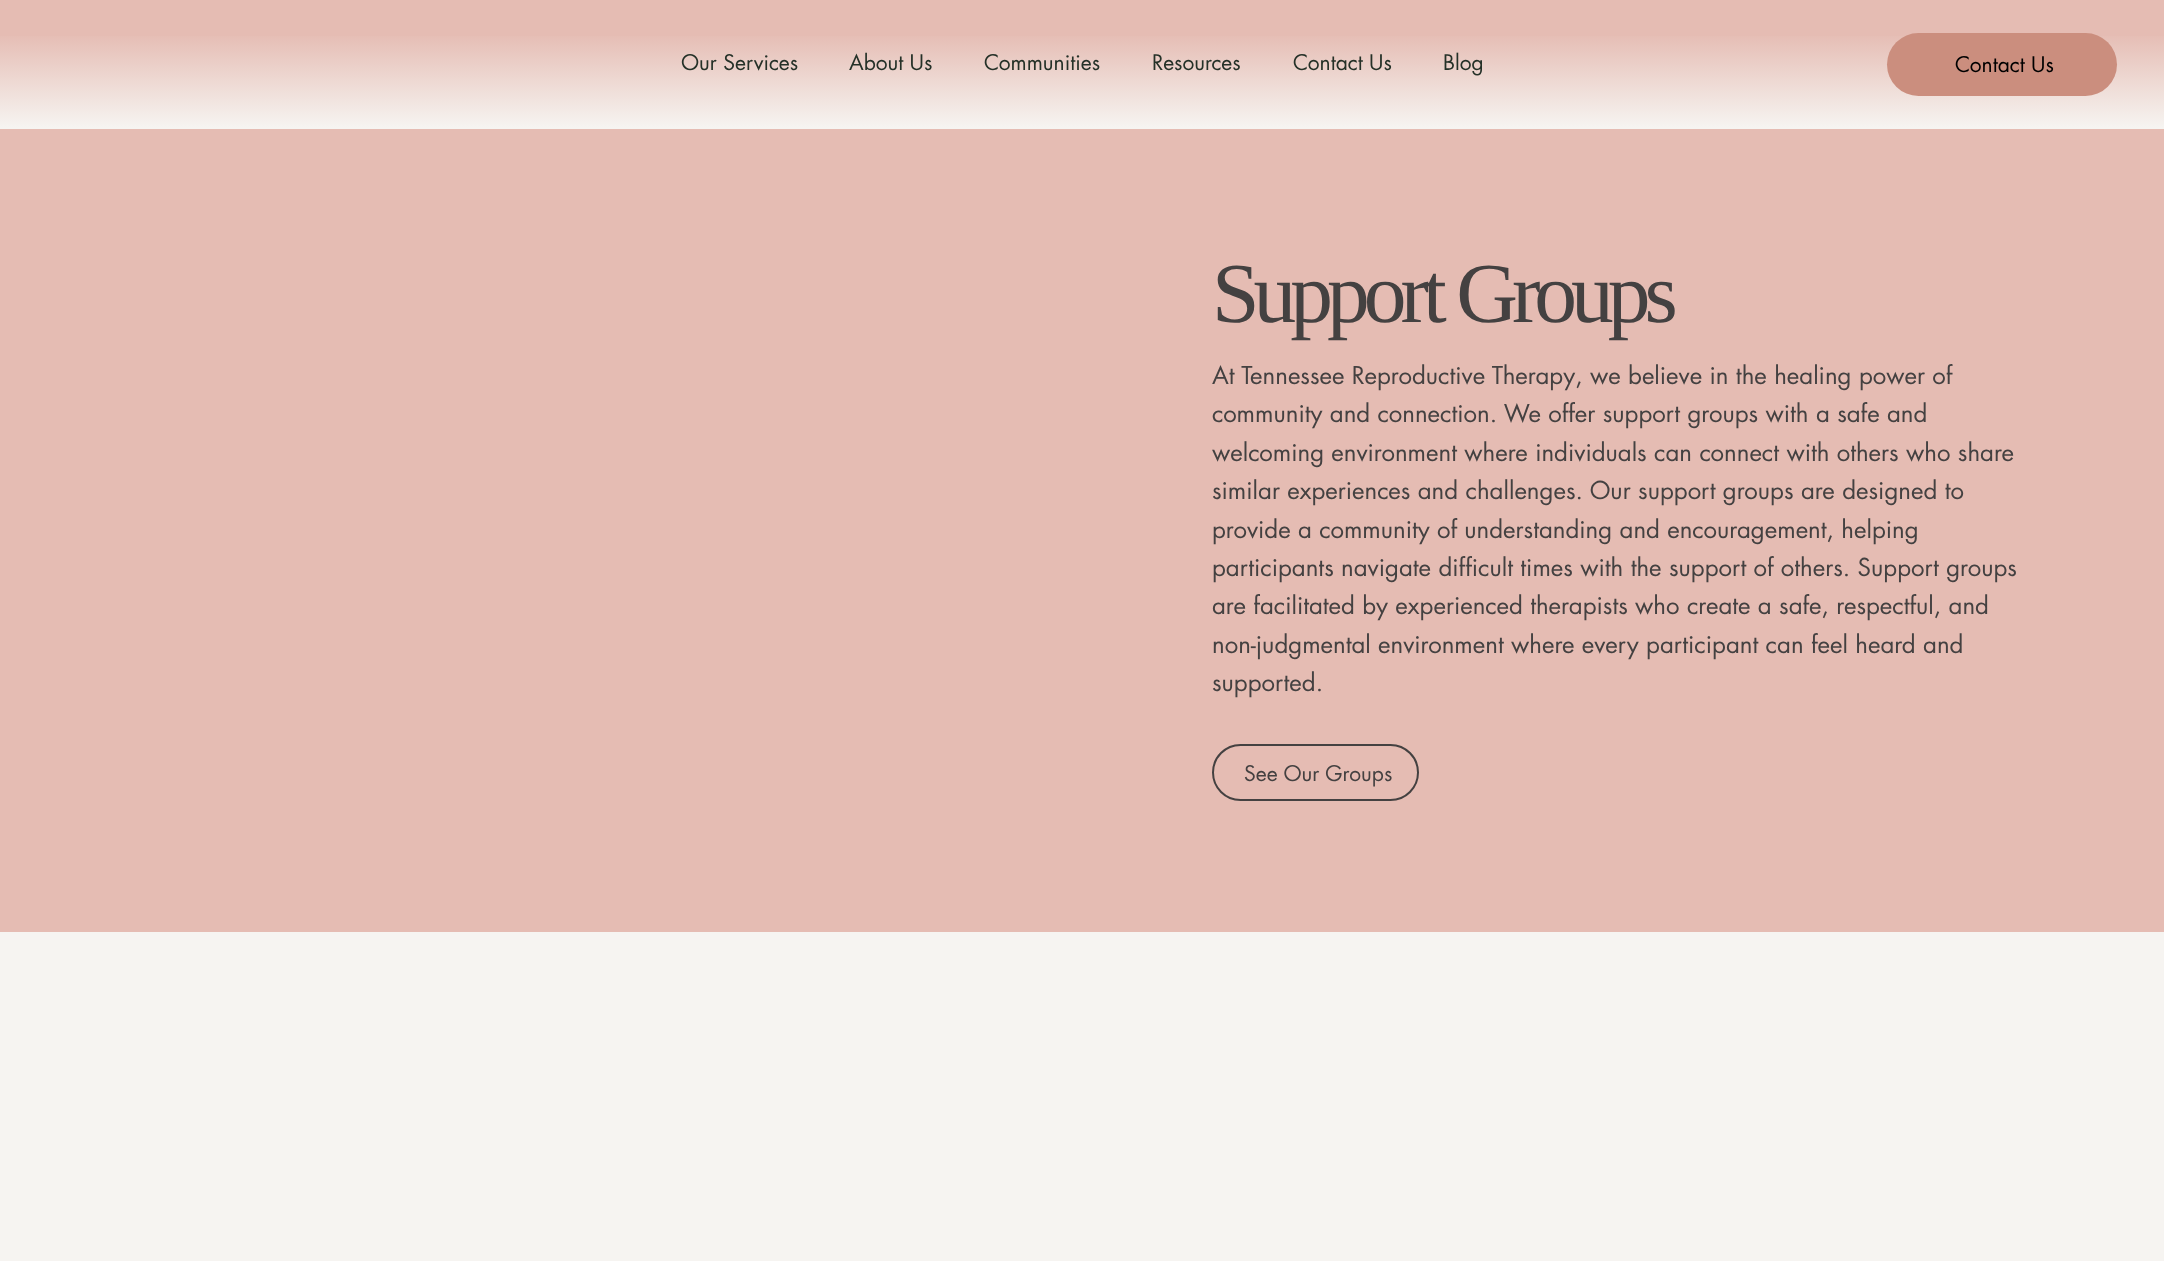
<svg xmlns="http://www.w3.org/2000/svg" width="2164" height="1261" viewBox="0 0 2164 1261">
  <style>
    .t1 { font: 21px futura; fill: #253128; }
    .t2 { font: 21px futura; fill: #000; }
    .t3 { font: 85.5px Liberation Serif; letter-spacing: -6px; fill: #444141; }
    .t4 { font: 24px futura; fill: #444141; }
    .t5 { font: 21px futura; fill: #444141; }
  </style>
  <defs>
    <linearGradient id="g1" gradientUnits="userSpaceOnUse" x1="1082" y1="129" x2="1082" y2="0"><stop offset="0.01" stop-color="#f6f4f1"/><stop offset="0.75" stop-color="#e5bcb3"/></linearGradient>
  </defs>
  <rect width="100%" height="100%" fill="#e5bcb3"/>
  <rect x="0" y="36" width="2164" height="93" fill="url(#g1)"/>
  <text x="681" y="70" class="t1">Our Services</text>
  <text x="849" y="70" class="t1">About Us</text>
  <text x="984" y="70" class="t1">Communities</text>
  <text x="1152" y="70" class="t1">Resources</text>
  <text x="1293" y="70" class="t1">Contact Us</text>
  <text x="1443" y="70" class="t1">Blog</text>
  <rect x="1887" y="33" width="230" height="63" rx="31.5" fill="#cb8e7e"/>
  <text x="1955" y="72" class="t2">Contact Us</text>
  <text x="1212" y="322" class="t3">Support Groups</text>
  <text x="1212" y="384" class="t4">At Tennessee Reproductive Therapy, we believe in the healing power of</text>
  <text x="1212" y="422" class="t4">community and connection. We offer support groups with a safe and</text>
  <text x="1212" y="461" class="t4">welcoming environment where individuals can connect with others who share</text>
  <text x="1212" y="499" class="t4">similar experiences and challenges. Our support groups are designed to</text>
  <text x="1212" y="538" class="t4">provide a community of understanding and encouragement, helping</text>
  <text x="1212" y="576" class="t4">participants navigate difficult times with the support of others. Support groups</text>
  <text x="1212" y="614" class="t4">are facilitated by experienced therapists who create a safe, respectful, and</text>
  <text x="1212" y="653" class="t4">non-judgmental environment where every participant can feel heard and</text>
  <text x="1212" y="691" class="t4">supported.</text>
  <rect x="1213" y="745" width="205" height="55" rx="27.5" fill="none" stroke="#444141" stroke-width="2"/>
  <text x="1244" y="781" class="t5">See Our Groups</text>
  <rect x="0" y="932" width="2164" height="329" fill="#f6f4f1"/>
</svg>
